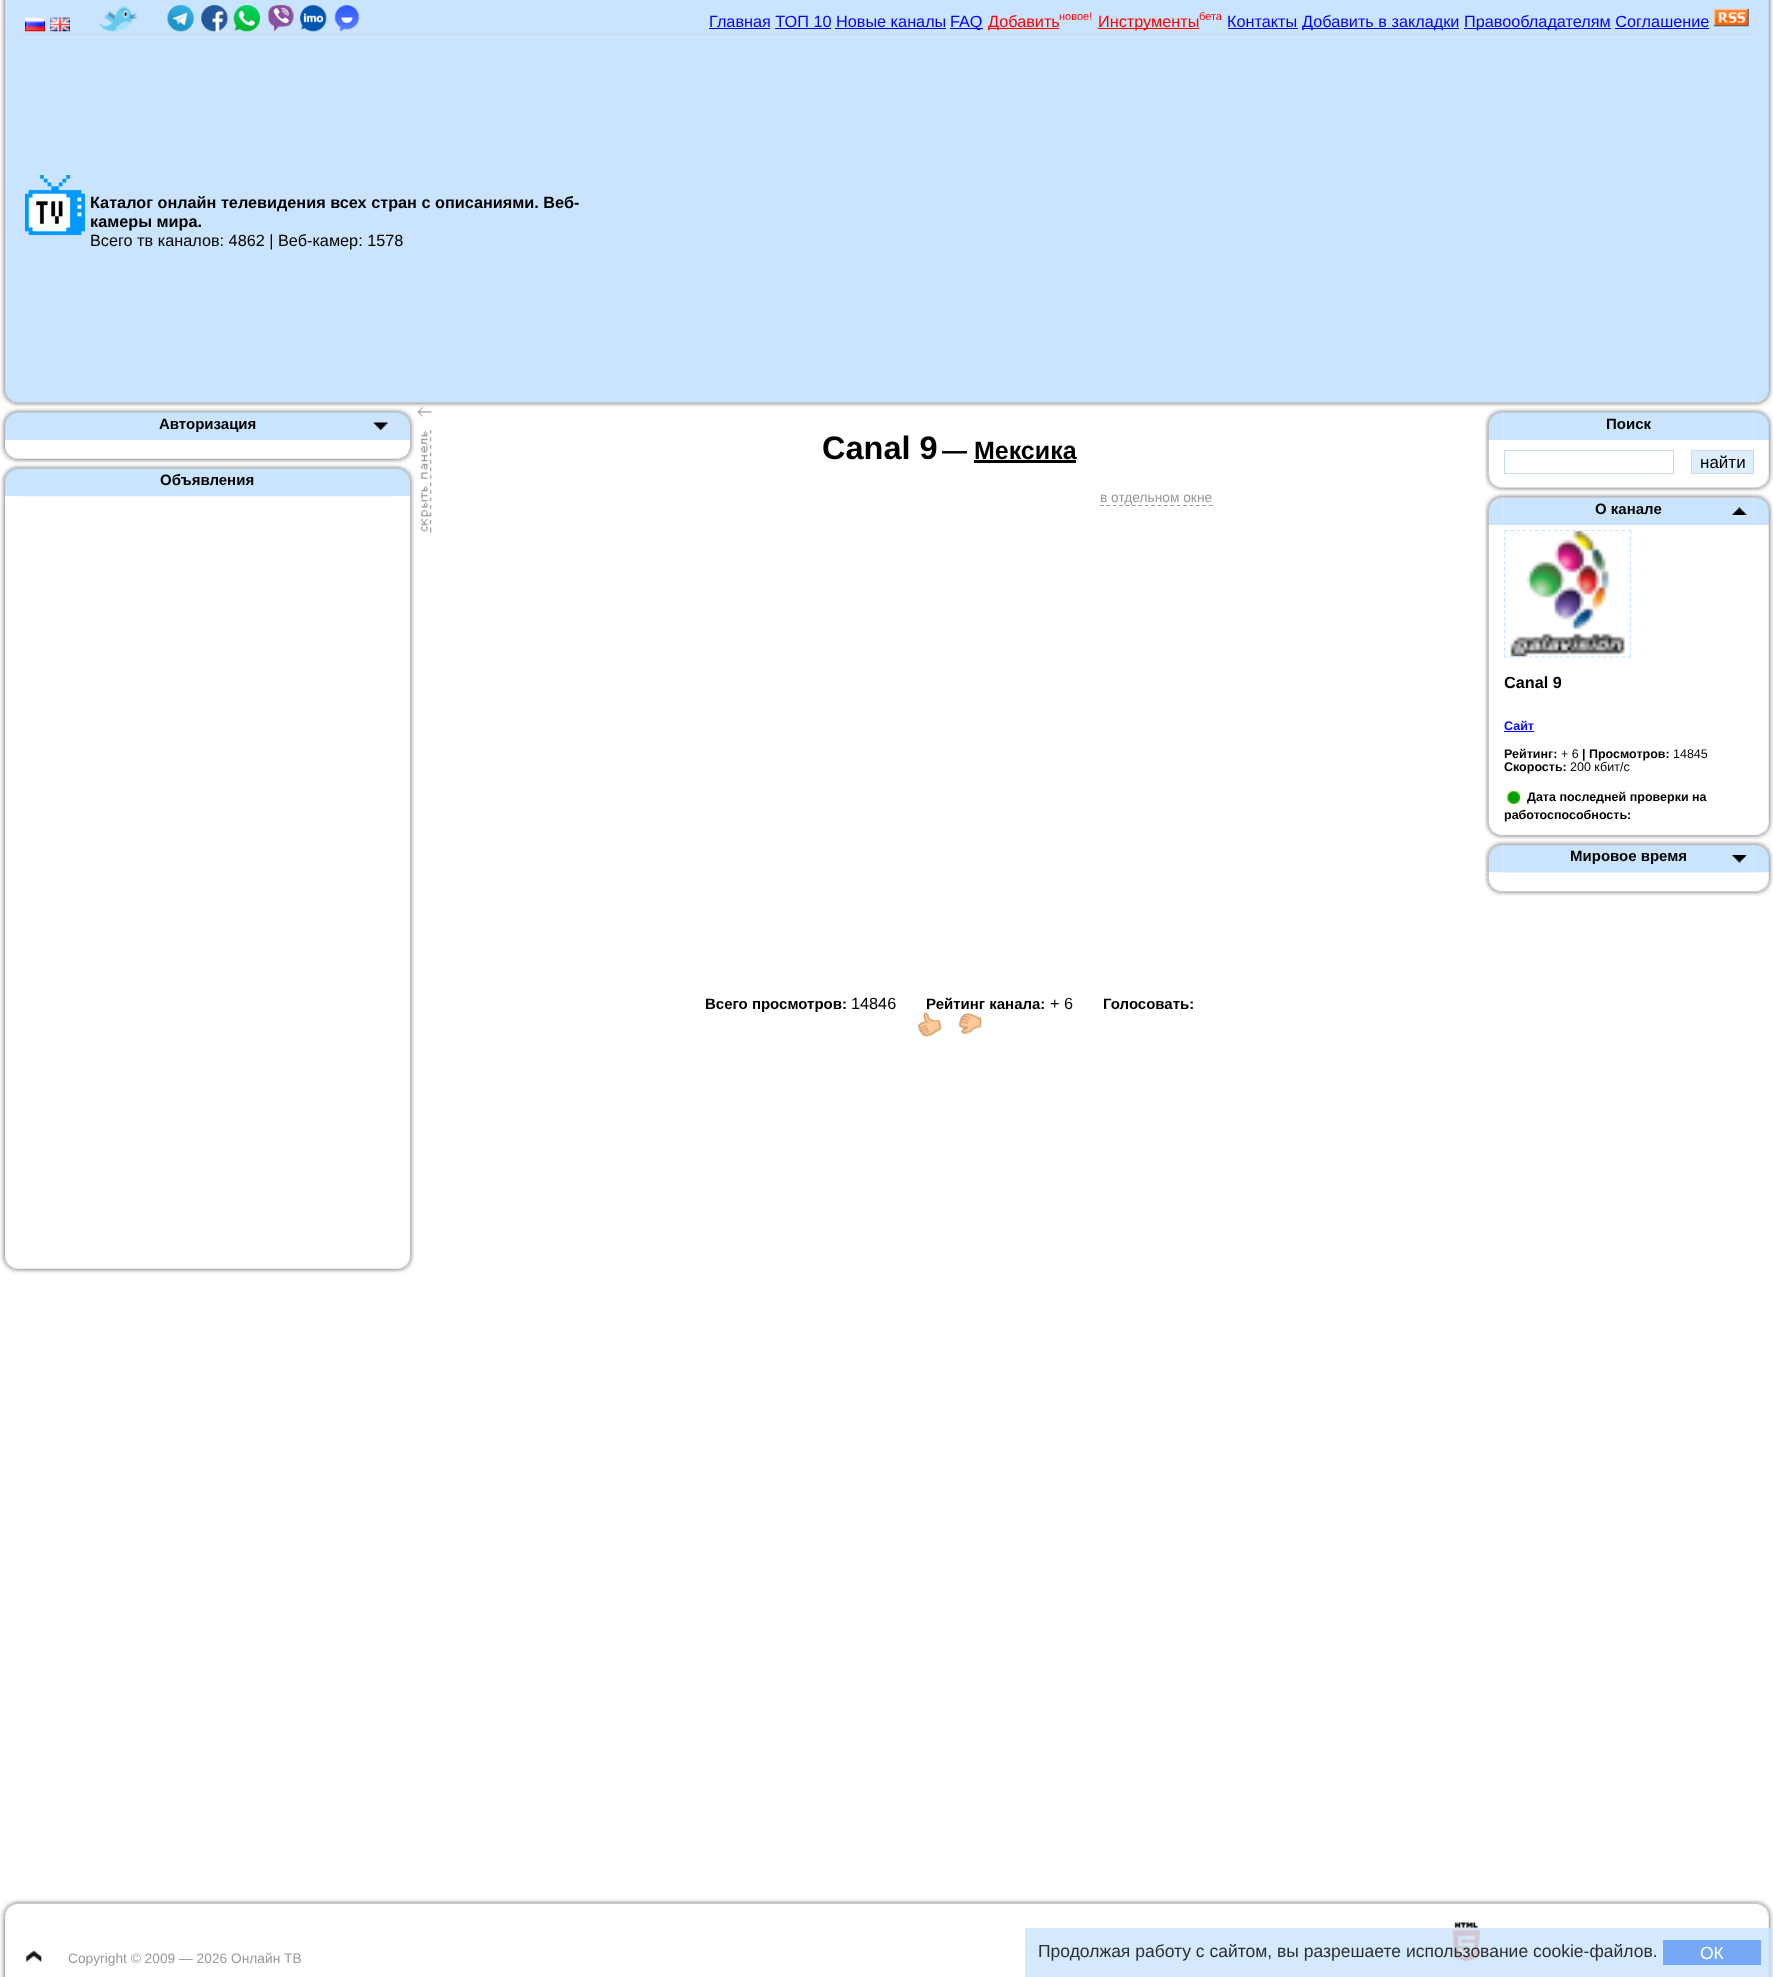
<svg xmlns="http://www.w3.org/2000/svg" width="1773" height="1977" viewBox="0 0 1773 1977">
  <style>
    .t1 { font: 16.25px Liberation Sans; fill: #00f; }
    .t2 { font: 16.25px Liberation Sans; fill: #f00; }
    .t3 { font: 11px Liberation Sans; fill: #f00; }
    .t4 { font: bold 16.25px Liberation Sans; fill: #000; }
    .t5 { font: 16.25px Liberation Sans; fill: #000; }
    .t6 { font: bold 15px Liberation Sans; fill: #000; }
    .t7 { font: bold 32.5px Liberation Sans; fill: #000; }
    .t8 { font: bold 25px Liberation Sans; fill: #000; }
    .t9 { font: 13.75px Liberation Sans; fill: #999; }
    .t10 { font: 17px Liberation Sans; fill: #000; }
    .t11 { font: bold 12.5px Liberation Sans; fill: #00f; }
    .t12 { font: bold 12.5px Liberation Sans; fill: #000; }
    .t13 { font: 12.5px Liberation Sans; fill: #000; }
    .t14 { font: 17.5px Liberation Sans; fill: #2a2e32; }
    .t15 { font: 17.5px Liberation Sans; fill: #fff; }
  </style>
  <rect width="100%" height="100%" fill="#fff"/>
  <rect x="0" y="0" width="1773" height="389" fill="#cae4fd"/>
  <image x="0" y="0" width="6" height="389" href="images/1.png"/>
  <rect x="20" y="34" width="520" height="1" fill="#c9d7f1"/>
  <image x="25" y="17" width="20" height="15" href="images/2.png"/>
  <image x="50" y="17" width="20" height="15" href="images/3.png"/>
  <image x="98" y="5" width="40" height="27" href="images/4.png"/>
  <image x="167" y="5" width="27" height="27" href="images/5.png"/>
  <image x="201" y="5" width="27" height="27" href="images/6.png"/>
  <image x="233" y="5" width="27" height="27" href="images/7.png"/>
  <image x="268" y="5" width="26" height="27" href="images/8.png"/>
  <image x="300" y="5" width="27" height="27" href="images/9.png"/>
  <image x="334" y="5" width="26" height="27" href="images/10.png"/>
  <image x="540" y="34" width="1214" height="1" href="images/11.png"/>
  <text x="709" y="27" class="t1">Главная ТОП 10 Новые каналы</text>
  <rect x="709" y="28" width="61" height="1" fill="#00f"/>
  <rect x="950" y="28" width="33" height="1" fill="#00f"/>
  <text x="950" y="27" class="t1">FAQ</text>
  <rect x="988" y="28" width="71" height="1" fill="#f00"/>
  <text x="988" y="27" class="t2">Добавить</text>
  <text x="1059" y="20" class="t3">новое!</text>
  <rect x="1098" y="28" width="101" height="1" fill="#f00"/>
  <text x="1098" y="27" class="t2">Инструменты</text>
  <text x="1199" y="20" class="t3">бета</text>
  <text x="1227" y="27" class="t1">Контакты</text>
  <rect x="1228" y="28" width="70" height="1" fill="#00f"/>
  <rect x="1303" y="28" width="156" height="1" fill="#00f"/>
  <text x="1302" y="27" class="t1">Добавить в закладки</text>
  <rect x="1464" y="28" width="147" height="1" fill="#00f"/>
  <text x="1464" y="27" class="t1">Правообладателям Соглашение</text>
  <image x="1713" y="8" width="36" height="19" href="images/12.png"/>
  <rect x="775" y="28" width="56" height="1" fill="#00f"/>
  <rect x="835" y="28" width="111" height="1" fill="#00f"/>
  <rect x="1615" y="28" width="94" height="1" fill="#00f"/>
  <image x="25" y="175" width="60" height="60" href="images/13.png"/>
  <text x="90" y="208" class="t4">Каталог онлайн телевидения всех стран с описаниями. Веб-</text>
  <text x="90" y="227" class="t4">камеры мира.</text>
  <text x="90" y="246" class="t5">Всего тв каналов: 4862 | Веб-камер: 1578</text>
  <image x="1768" y="0" width="5" height="389" href="images/14.png"/>
  <image x="0" y="388" width="20" height="20" href="images/15.png"/>
  <image x="20" y="389" width="1734" height="19" href="images/16.png"/>
  <image x="1753" y="389" width="20" height="19" href="images/17.png"/>
  <image x="0" y="408" width="20" height="32" href="images/18.png"/>
  <image x="20" y="408" width="375" height="32" href="images/19.png"/>
  <text x="159" y="429" class="t6">Авторизация</text>
  <image x="373" y="422" width="15" height="8" href="images/20.png"/>
  <image x="395" y="408" width="20" height="32" href="images/21.png"/>
  <image x="0" y="440" width="6" height="5" href="images/22.png"/>
  <image x="409" y="440" width="6" height="5" href="images/23.png"/>
  <image x="0" y="445" width="20" height="19" href="images/24.png"/>
  <image x="20" y="458" width="375" height="6" href="images/25.png"/>
  <image x="395" y="445" width="20" height="19" href="images/26.png"/>
  <image x="0" y="464" width="20" height="33" href="images/27.png"/>
  <image x="20" y="464" width="375" height="33" href="images/28.png"/>
  <text x="160" y="485" class="t6">Объявления</text>
  <image x="395" y="464" width="20" height="33" href="images/29.png"/>
  <image x="0" y="496" width="20" height="759" href="images/30.png"/>
  <image x="395" y="496" width="20" height="759" href="images/31.png"/>
  <image x="0" y="1255" width="20" height="19" href="images/24.png"/>
  <image x="20" y="1268" width="375" height="6" href="images/25.png"/>
  <image x="395" y="1255" width="20" height="19" href="images/26.png"/>
  <image x="417" y="407" width="15" height="126" href="images/32.png"/>
  <text x="822" y="459" class="t7">Canal 9</text>
  <text x="942" y="459" class="t8">— Мексика</text>
  <rect x="974" y="460" width="102" height="3" fill="#000"/>
  <path d="M1100 505.5H1212.5" fill="none" stroke="#999" stroke-width="1.2" stroke-dasharray="3.75 2.65"/>
  <text x="1100" y="502" class="t9">в отдельном окне</text>
  <text x="705" y="1009" class="t6">Всего просмотров:</text>
  <text x="851" y="1009" class="t5">14846</text>
  <text x="926" y="1009" class="t6">Рейтинг канала:</text>
  <text x="1050" y="1009" class="t5">+ 6</text>
  <text x="1103" y="1009" class="t6">Голосовать:</text>
  <image x="917" y="1012" width="25" height="25" href="images/33.png"/>
  <image x="958" y="1013" width="24" height="21" href="images/34.png"/>
  <image x="1484" y="408" width="20" height="32" href="images/35.png"/>
  <image x="1503" y="408" width="251" height="32" href="images/36.png"/>
  <text x="1606" y="429" class="t6">Поиск</text>
  <image x="1753" y="408" width="20" height="32" href="images/37.png"/>
  <image x="1484" y="440" width="5" height="34" href="images/38.png"/>
  <rect x="1504.5" y="450.5" width="169" height="23" fill="none" stroke="#c9d7f1"/>
  <rect x="1691.5" y="450.5" width="62" height="23" fill="#def" stroke="#c9d7f1"/>
  <text x="1700" y="468" class="t10">найти</text>
  <image x="1768" y="440" width="5" height="34" href="images/39.png"/>
  <image x="1484" y="474" width="20" height="19" href="images/40.png"/>
  <image x="1503" y="487" width="251" height="6" href="images/41.png"/>
  <image x="1753" y="474" width="20" height="19" href="images/42.png"/>
  <image x="1484" y="493" width="20" height="32" href="images/35.png"/>
  <image x="1503" y="493" width="251" height="32" href="images/36.png"/>
  <text x="1595" y="514" class="t6">О канале</text>
  <image x="1732" y="507" width="15" height="8" href="images/43.png"/>
  <image x="1753" y="493" width="20" height="32" href="images/37.png"/>
  <image x="1484" y="525" width="5" height="297" href="images/44.png"/>
  <path d="M1504 530.5H1631" fill="none" stroke="#cae4fd" stroke-width="1.2" stroke-dasharray="3.75 2.44"/>
  <path d="M1630.5 530V657.5" fill="none" stroke="#cae4fd" stroke-width="1.2" stroke-dasharray="3.75 2.44"/>
  <path d="M1504 657H1631" fill="none" stroke="#cae4fd" stroke-width="1.2" stroke-dasharray="3.75 2.44"/>
  <path d="M1504.5 530V657.5" fill="none" stroke="#cae4fd" stroke-width="1.2" stroke-dasharray="3.75 2.44"/>
  <image x="1510" y="531" width="115" height="126" href="images/45.png"/>
  <text x="1504" y="688" class="t4">Canal 9</text>
  <text x="1504" y="730" class="t11">Сайт</text>
  <rect x="1504" y="731" width="30" height="1" fill="#00f"/>
  <text x="1504" y="758" class="t12">Рейтинг:</text>
  <text x="1561" y="758" class="t13">+ 6</text>
  <text x="1582" y="758" class="t12">| Просмотров:</text>
  <text x="1673" y="758" class="t13">14845</text>
  <text x="1504" y="771" class="t12">Скорость:</text>
  <text x="1570" y="771" class="t13">200 кбит/с</text>
  <image x="1504" y="787" width="20" height="21" href="images/46.png"/>
  <text x="1527" y="801" class="t12">Дата последней проверки на</text>
  <text x="1504" y="819" class="t12">работоспособность:</text>
  <image x="1768" y="525" width="5" height="297" href="images/47.png"/>
  <image x="1484" y="821" width="20" height="19" href="images/48.png"/>
  <image x="1503" y="834" width="251" height="6" href="images/49.png"/>
  <image x="1753" y="821" width="20" height="19" href="images/50.png"/>
  <image x="1484" y="840" width="20" height="33" href="images/51.png"/>
  <image x="1503" y="840" width="251" height="33" href="images/52.png"/>
  <text x="1570" y="861" class="t6">Мировое время</text>
  <image x="1732" y="855" width="15" height="8" href="images/53.png"/>
  <image x="1753" y="840" width="20" height="33" href="images/54.png"/>
  <image x="1484" y="872" width="20" height="6" href="images/55.png"/>
  <image x="1754" y="872" width="19" height="6" href="images/56.png"/>
  <image x="1484" y="877" width="20" height="19" href="images/57.png"/>
  <image x="1504" y="891" width="250" height="5" href="images/58.png"/>
  <image x="1754" y="877" width="19" height="19" href="images/59.png"/>
  <image x="0" y="1899" width="20" height="19" href="images/60.png"/>
  <image x="20" y="1899" width="1734" height="5" href="images/61.png"/>
  <image x="1754" y="1899" width="19" height="19" href="images/62.png"/>
  <image x="0" y="1917" width="6" height="60" href="images/63.png"/>
  <image x="26" y="1950" width="16" height="13" href="images/64.png"/>
  <text x="68" y="1963" class="t9">Copyright © 2009 — 2026 Онлайн ТВ</text>
  <image x="1452" y="1922" width="28" height="40" href="images/65.png"/>
  <image x="1768" y="1917" width="5" height="60" href="images/66.png"/>
  <rect x="1025" y="1928" width="748" height="49" fill="#cae4fdcc"/>
  <text x="1038" y="1957" class="t14">Продолжая работу с сайтом, вы разрешаете использование cookie-файлов.</text>
  <rect x="1663" y="1940" width="98" height="25" fill="#77a7f7"/>
  <text x="1700" y="1959" class="t15">ОК</text>
</svg>
